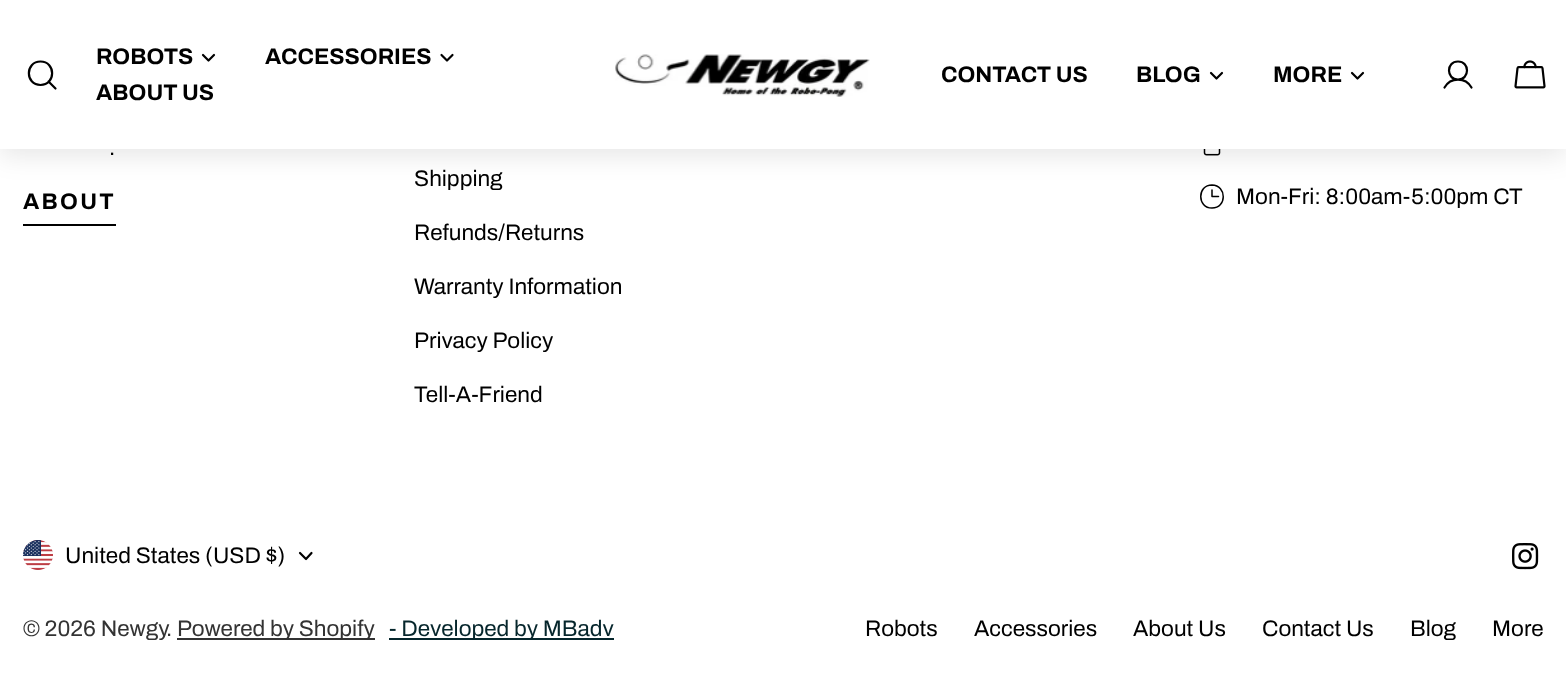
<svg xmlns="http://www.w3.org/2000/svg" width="1566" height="673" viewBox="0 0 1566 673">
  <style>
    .t1 { font: bold 22.5px Archivo; fill: #000; }
    .t2 { font: 22.5px Archivo; fill: #000; }
    .t3 { font: bold 22.5px Archivo; letter-spacing: 2.25px; fill: #000; }
    .t4 { font: 22.5px Archivo; fill: #333; }
    .t5 { font: 22.5px Archivo; fill: #06262c; }
  </style>
  <rect width="100%" height="100%" fill="#fff"/>
  <image x="1203" y="149" width="18" height="7" href="images/3.png"/>
  <path d="M1212 208C1227 208 1227 185.5 1212 185C1197 185 1197 208 1212 208ZM1212 190V196.5H1218.5" fill="none" stroke="#000" stroke-width="1.5" stroke-linecap="round" stroke-linejoin="round"/>
  <rect x="0" y="6" width="1566" height="149" fill="#0000001a" filter="blur(13.5px)"/>
  <rect x="0" y="0" width="1566" height="149" fill="#fff"/>
  <path d="M40.5 85C56 85 56 61.5 40.5 61.5C25 61.5 25 85 40.5 85ZM48.5 81.5L55.5 88.5" fill="none" stroke="#000" stroke-width="2.2" stroke-linecap="round" stroke-linejoin="round"/>
  <text x="96" y="64" class="t1">ROBOTS</text>
  <path d="M214 55L208.5 60.5L203 55" fill="none" stroke="#000" stroke-width="2.2" stroke-linecap="round" stroke-linejoin="round"/>
  <text x="265" y="64" class="t1">ACCESSORIES</text>
  <path d="M452.5 55L447 60.5L441.5 55" fill="none" stroke="#000" stroke-width="2.2" stroke-linecap="round" stroke-linejoin="round"/>
  <text x="96" y="100" class="t1">ABOUT US</text>
  <image x="615" y="54" width="255" height="43" href="images/1.png"/>
  <text x="941" y="82" class="t1">CONTACT US</text>
  <text x="1136" y="82" class="t1">BLOG</text>
  <path d="M1222 73L1216.5 78.5L1211 73" fill="none" stroke="#000" stroke-width="2.2" stroke-linecap="round" stroke-linejoin="round"/>
  <text x="1273" y="82" class="t1">MORE</text>
  <path d="M1363 73L1357.5 78.5L1352 73" fill="none" stroke="#000" stroke-width="2.2" stroke-linecap="round" stroke-linejoin="round"/>
  <path d="M1458 79.5C1470 79.5 1470 61.5 1458 61.5C1446 61.5 1446 79.5 1458 79.5ZM1444.5 87.5C1450.5 77 1465.5 77 1471.5 87.5" fill="none" stroke="#000" stroke-width="2.2" stroke-linecap="round" stroke-linejoin="round"/>
  <image x="1514" y="60" width="32" height="29" href="images/2.png"/>
  <text x="109" y="155" class="t2">.</text>
  <text x="23" y="209" class="t3">ABOUT</text>
  <rect x="23" y="224" width="93" height="2" fill="#000"/>
  <text x="414" y="186" class="t2">Shipping</text>
  <text x="414" y="240" class="t2">Refunds/Returns</text>
  <text x="414" y="294" class="t2">Warranty Information</text>
  <text x="414" y="348" class="t2">Privacy Policy</text>
  <text x="414" y="402" class="t2">Tell-A-Friend</text>
  <text x="1236" y="204" class="t2">Mon-Fri: 8:00am-5:00pm CT</text>
  <image x="23" y="540" width="30" height="30" href="images/4.png"/>
  <text x="65" y="563" class="t2">United States (USD $)</text>
  <path d="M311.5 553L306 559L300 553" fill="none" stroke="#000" stroke-width="2.2" stroke-linecap="round" stroke-linejoin="round"/>
  <image x="1512" y="543" width="27" height="27" href="images/5.png"/>
  <text x="23" y="636" class="t4">© 2026 Newgy</text>
  <text x="166" y="636" class="t4">.</text>
  <rect x="177" y="638" width="198" height="2" fill="#333"/>
  <text x="177" y="636" class="t4">Powered by Shopify</text>
  <rect x="389" y="638" width="225" height="2" fill="#06262c"/>
  <text x="389" y="636" class="t5">- Developed by MBadv</text>
  <text x="865" y="636" class="t2">Robots</text>
  <text x="974" y="636" class="t2">Accessories</text>
  <text x="1133" y="636" class="t2">About Us</text>
  <text x="1262" y="636" class="t2">Contact Us</text>
  <text x="1410" y="636" class="t2">Blog</text>
  <text x="1492" y="636" class="t2">More</text>
</svg>
